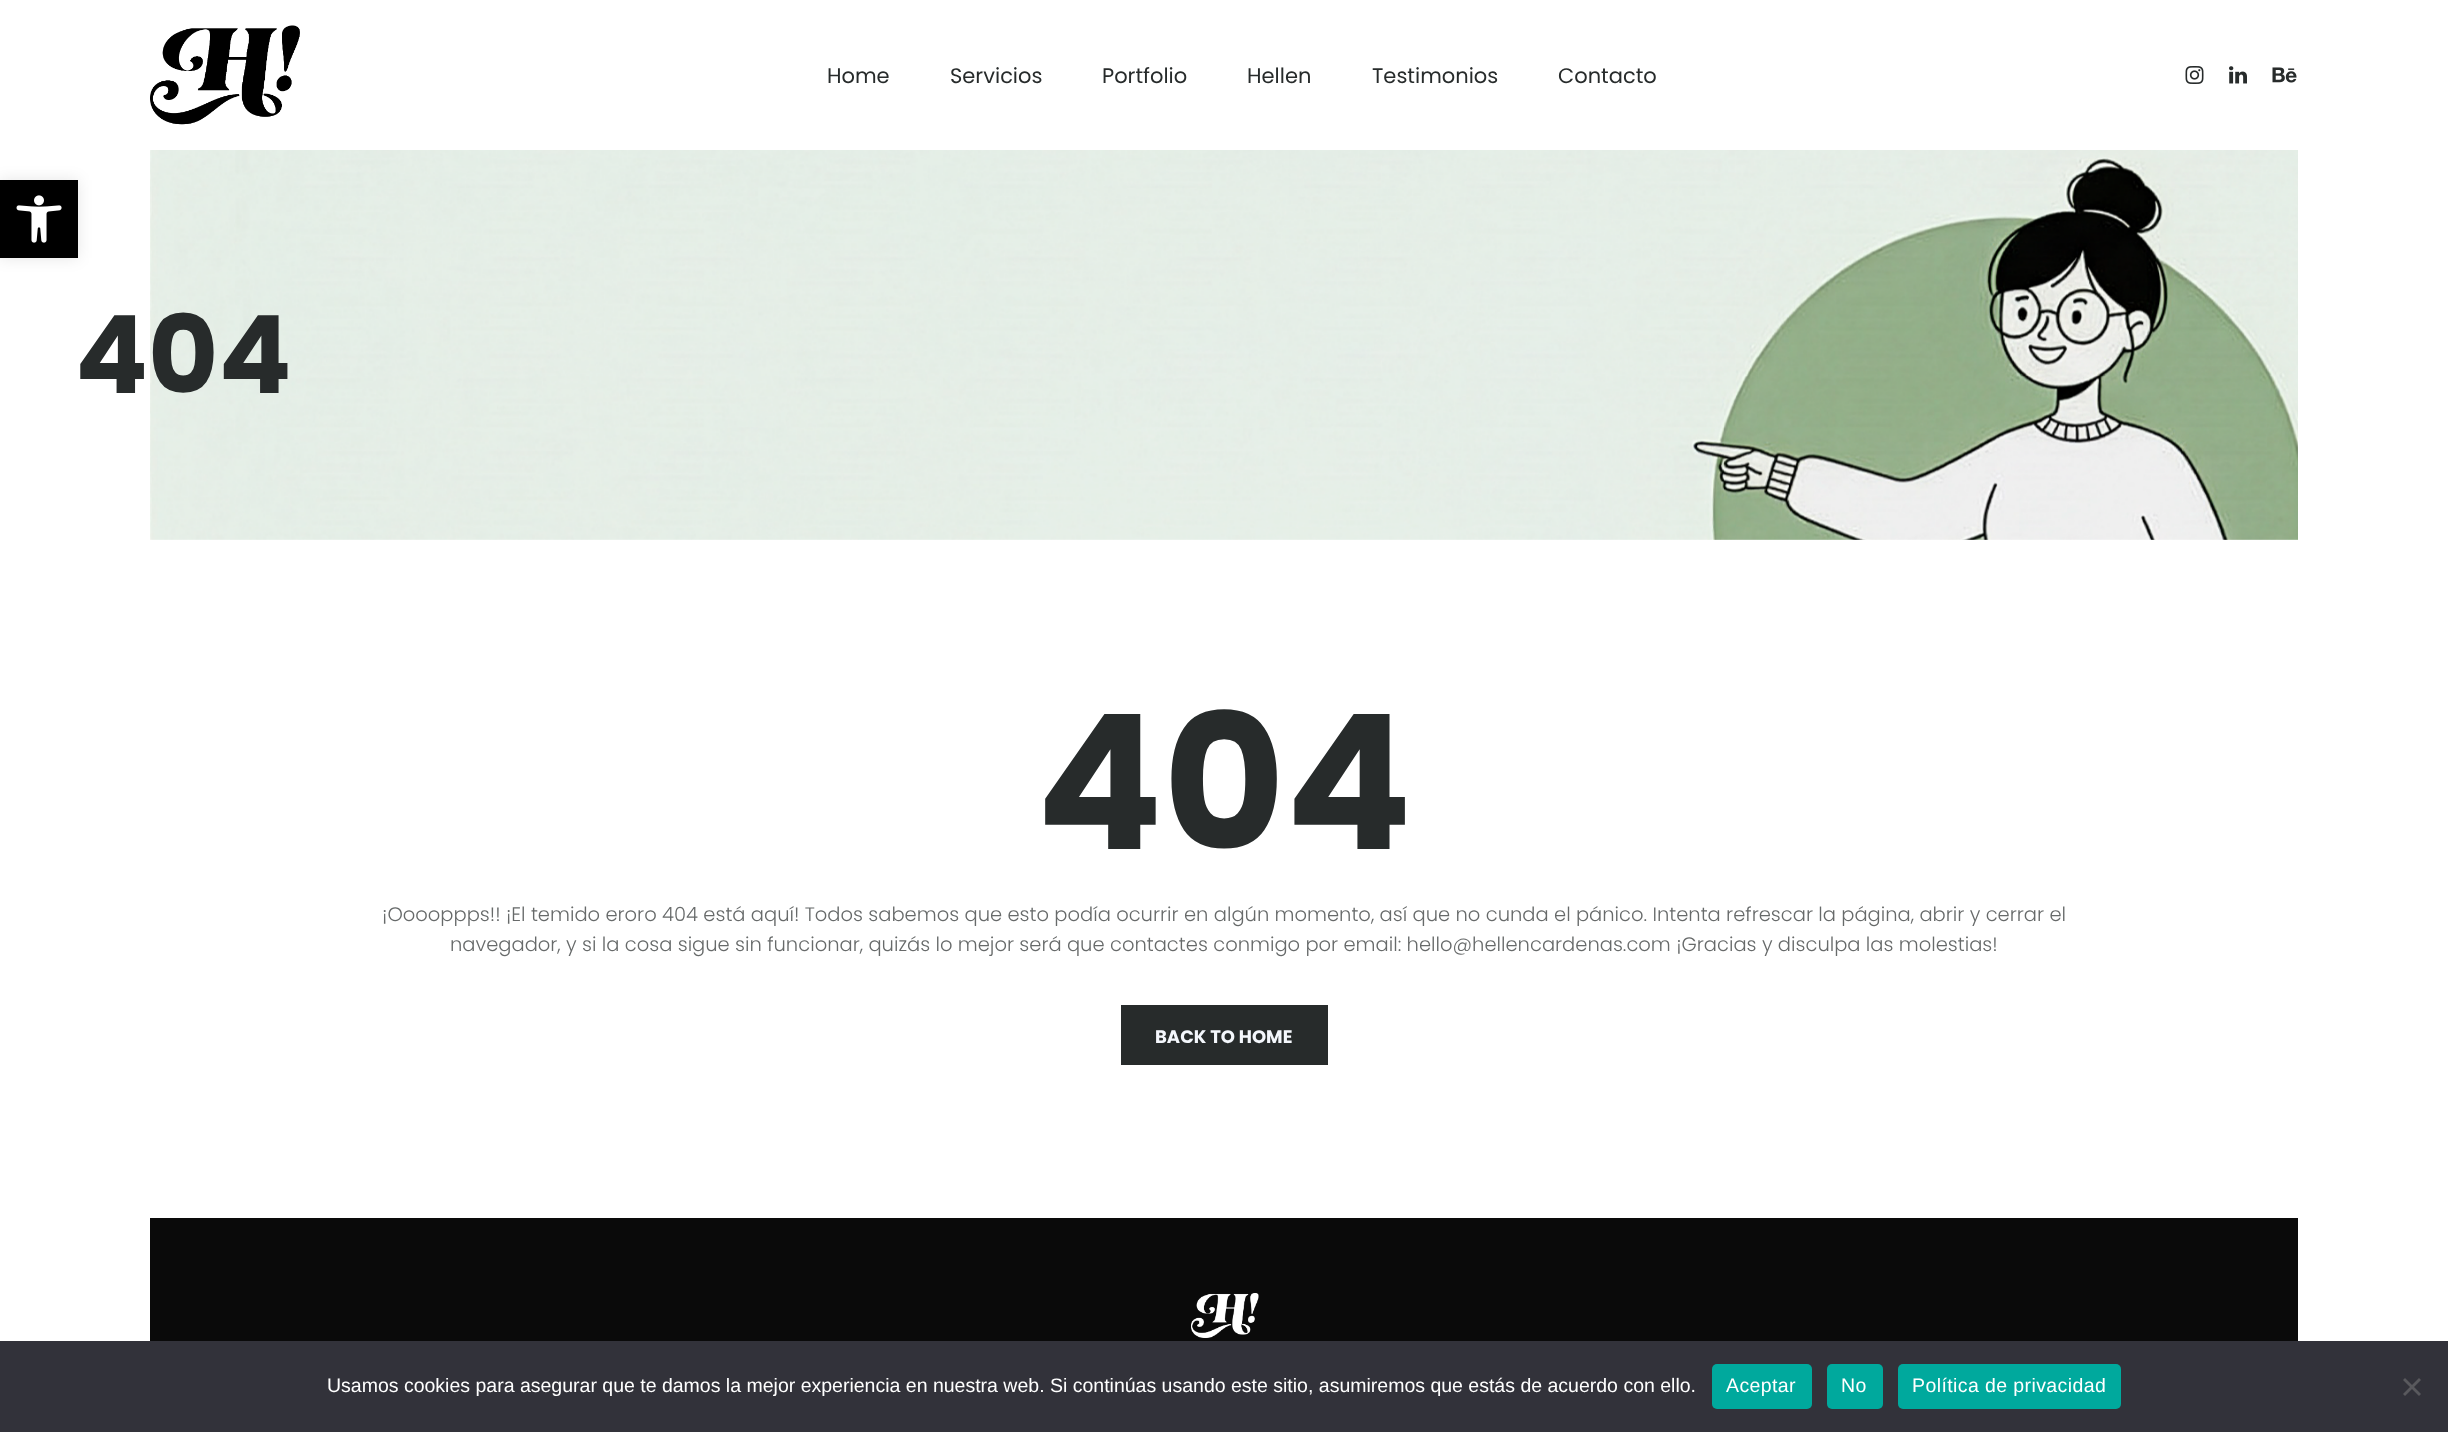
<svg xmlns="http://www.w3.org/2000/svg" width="2448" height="1432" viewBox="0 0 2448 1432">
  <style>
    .t1 { font: 21px Poppins; fill: #272b2b; }
    .t2 { font: bold 108px Poppins; fill: #272b2b; }
    .t3 { font: bold 187.5px Poppins; fill: #272b2b; }
    .t4 { font: 300 19.5px Poppins; fill: #676a6a; }
    .t5 { font: bold 18px Poppins; fill: #f4f7fc; }
    .t6 { font: 19.5px Liberation Sans; fill: #fff; }
    .t7 { font: 19.5px Liberation Sans; letter-spacing: 0.4px; fill: #fff; }
  </style>
  <rect width="100%" height="100%" fill="#fff"/>
  <image x="150" y="25" width="150" height="100" href="images/1.png"/>
  <text x="827" y="83" class="t1">Home</text>
  <text x="950" y="83" class="t1">Servicios</text>
  <text x="1102" y="83" class="t1">Portfolio</text>
  <text x="1247" y="83" class="t1">Hellen</text>
  <text x="1372" y="83" class="t1">Testimonios</text>
  <text x="1558" y="83" class="t1">Contacto</text>
  <image x="2185" y="66" width="19" height="18" href="images/2.png"/>
  <image x="2229" y="66" width="18" height="18" href="images/3.png"/>
  <image x="2272" y="67" width="25" height="16" href="images/4.png"/>
  <rect x="0" y="180" width="78" height="78" fill="#0000001a" filter="blur(7.5px)"/>
  <rect x="0" y="180" width="78" height="78" fill="#000"/>
  <image x="16" y="195" width="46" height="48" href="images/5.png"/>
  <image x="150" y="150" width="2148" height="390" href="images/6.png"/>
  <text x="75" y="393" class="t2">404</text>
  <text x="1036" y="849" class="t3">404</text>
  <text x="382" y="921" class="t4">¡Ooooppps!! ¡El temido eroro 404 está aquí! Todos sabemos que esto podía ocurrir en algún momento, así que no cunda el pánico. Intenta refrescar la página, abrir y cerrar el</text>
  <text x="450" y="951" class="t4">navegador, y si la cosa sigue sin funcionar, quizás lo mejor será que contactes conmigo por email: hello@hellencardenas.com ¡Gracias y disculpa las molestias!</text>
  <rect x="1121" y="1005" width="207" height="60" fill="#272b2b"/>
  <text x="1155" y="1043" class="t5">BACK TO HOME</text>
  <rect x="150" y="1218" width="2148" height="123" fill="#0a0a0a"/>
  <image x="1191" y="1293" width="68" height="45" href="images/7.png"/>
  <rect x="0" y="1341" width="2448" height="91" fill="#32323a"/>
  <text x="327" y="1392" class="t6">Usamos cookies para asegurar que te damos la mejor experiencia en nuestra web. Si continúas usando este sitio, asumiremos que estás de acuerdo con ello.</text>
  <rect x="1712" y="1364" width="100" height="45" rx="5" fill="#00a99d"/>
  <text x="1726" y="1392" class="t7">Aceptar</text>
  <rect x="1827" y="1364" width="56" height="45" rx="5" fill="#00a99d"/>
  <text x="1841" y="1392" class="t7">No</text>
  <rect x="1898" y="1364" width="223" height="45" rx="5" fill="#00a99d"/>
  <text x="1912" y="1392" class="t7">Política de privacidad</text>
  <path d="M2419 1378L2421 1380L2405 1396L2403 1394Z" fill="#59595d"/>
  <path d="M2403 1380L2405 1378L2421 1394L2419 1396Z" fill="#59595d"/>
</svg>
